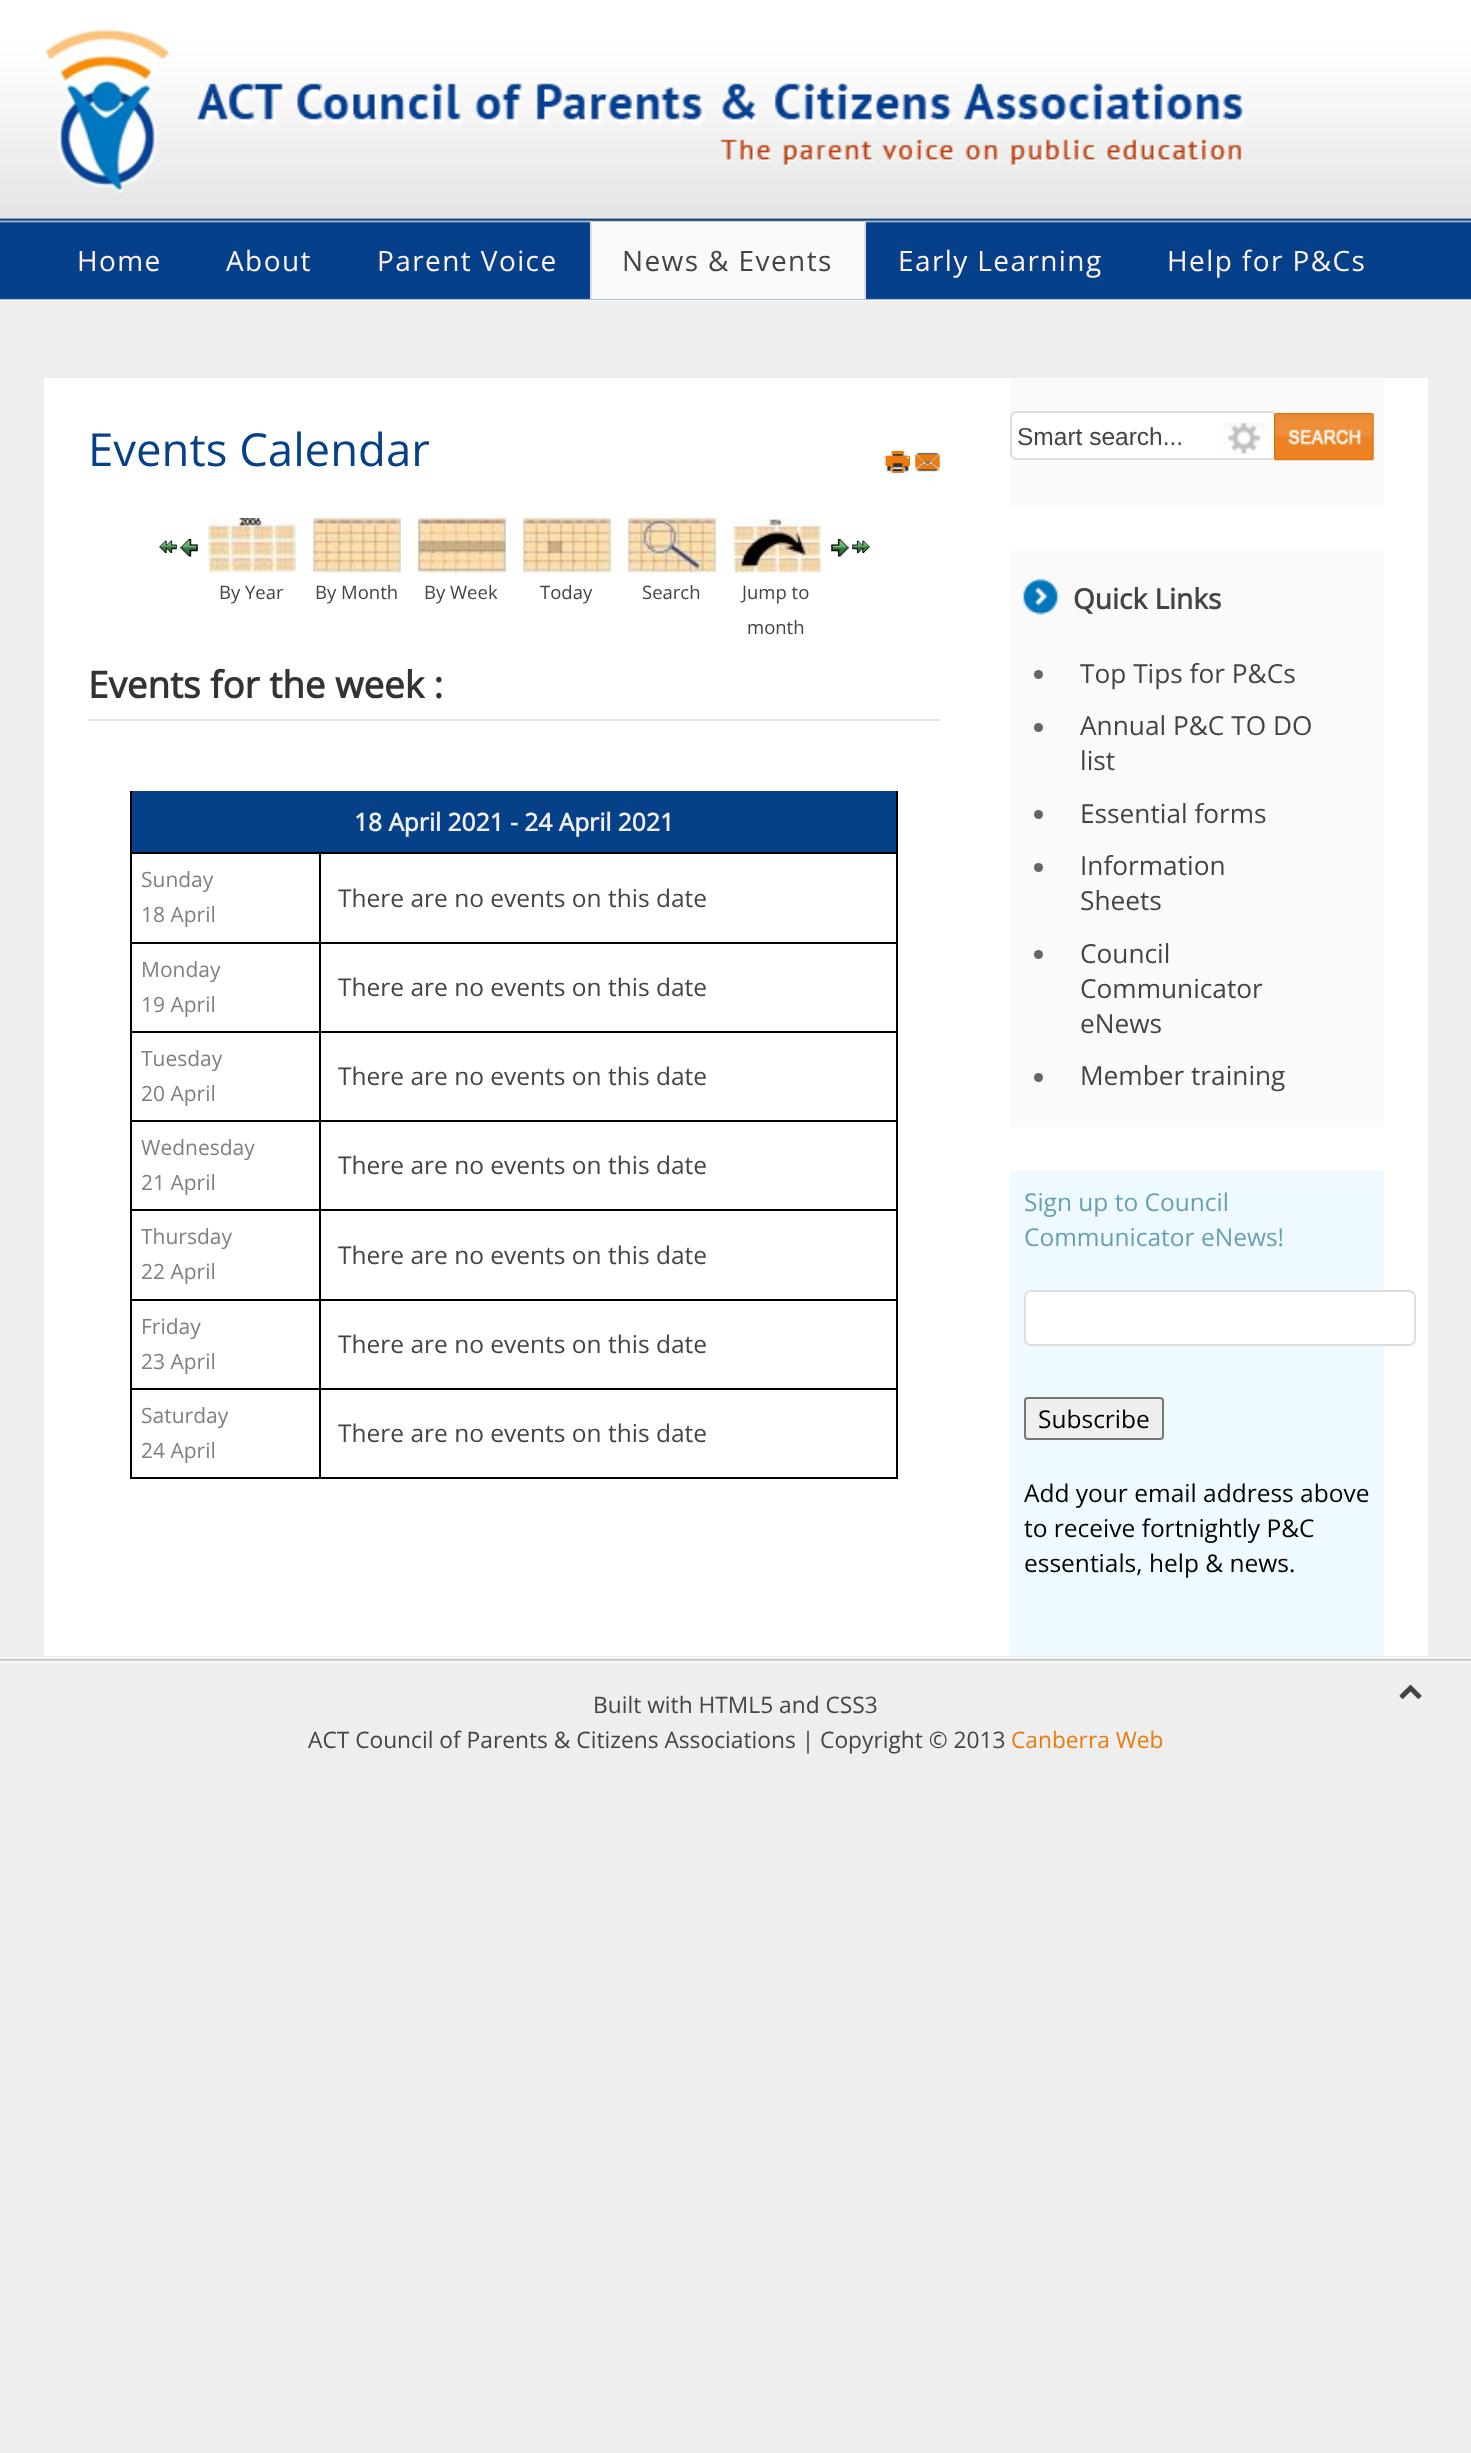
<svg xmlns="http://www.w3.org/2000/svg" width="1471" height="2453" viewBox="0 0 1471 2453">
  <style>
    .t1 { font: 28px Open Sans; letter-spacing: 1.4px; fill: #fff3f2; }
    .t2 { font: 28px Open Sans; letter-spacing: 1.4px; fill: #444; }
    .t3 { font: 45.5px Open Sans; fill: #064089; }
    .t4 { font: 18.5px Open Sans; fill: #444; }
    .t5 { font: bold 36.75px Open Sans; fill: #333; }
    .t6 { font: bold 24.5px Open Sans; fill: #f0f0f0; }
    .t7 { font: 21px Open Sans; fill: #808080; }
    .t8 { font: 24.5px Open Sans; fill: #444; }
    .t9 { font: 24.5px Liberation Sans; fill: #444; }
    .t10 { font: bold 28px Open Sans; fill: #444; }
    .t11 { font: 26.25px Open Sans; fill: #444; }
    .t12 { font: 24.5px Open Sans; fill: #699eb3; }
    .t13 { font: 24.5px Open Sans; fill: #000; }
    .t14 { font: 22.75px Open Sans; fill: #444; }
    .t15 { font: 22.75px Open Sans; fill: #eb7b0e; }
  </style>
  <rect width="100%" height="100%" fill="#eee"/>
  <image x="0" y="0" width="1471" height="1663" href="images/1.png"/>
  <image x="45" y="28" width="1201" height="166" href="images/2.png"/>
  <text x="77" y="271" class="t1">Home</text>
  <text x="226" y="271" class="t1">About</text>
  <text x="377" y="271" class="t1">Parent Voice</text>
  <rect x="590" y="221" width="276" height="78" fill="#fafafa"/>
  <path d="M590 220H866L864 222H592Z" fill="#00000033"/>
  <path d="M866 220V299H864V222Z" fill="#0000001a"/>
  <path d="M590 299V220L592 222V299Z" fill="#0000001a"/>
  <text x="622" y="271" class="t2">News &amp; Events</text>
  <text x="898" y="271" class="t1">Early Learning</text>
  <text x="1167" y="271" class="t1">Help for P&amp;Cs</text>
  <rect x="44" y="378" width="1384" height="1278" fill="#fff"/>
  <text x="88" y="466" class="t3">Events Calendar</text>
  <image x="886" y="451" width="23" height="22" href="images/3.png"/>
  <image x="885" y="451" width="25" height="22" href="images/4.png"/>
  <image x="916" y="452" width="23" height="20" href="images/5.png"/>
  <image x="915" y="454" width="25" height="16" href="images/6.png"/>
  <image x="159" y="540" width="18" height="13" href="images/7.png"/>
  <image x="180" y="539" width="18" height="18" href="images/8.png"/>
  <image x="208" y="518" width="88" height="55" href="images/9.png"/>
  <image x="313" y="518" width="88" height="55" href="images/10.png"/>
  <image x="418" y="518" width="88" height="55" href="images/11.png"/>
  <image x="523" y="518" width="88" height="55" href="images/12.png"/>
  <image x="628" y="518" width="88" height="55" href="images/13.png"/>
  <image x="733" y="518" width="88" height="55" href="images/14.png"/>
  <image x="831" y="539" width="18" height="18" href="images/15.png"/>
  <image x="852" y="540" width="18" height="13" href="images/16.png"/>
  <text x="219" y="599" class="t4">By Year</text>
  <text x="315" y="599" class="t4">By Month</text>
  <text x="424" y="599" class="t4">By Week</text>
  <text x="540" y="599" class="t4">Today</text>
  <text x="642" y="599" class="t4">Search</text>
  <text x="742" y="599" class="t4">Jump to</text>
  <text x="747" y="634" class="t4">month</text>
  <rect x="88" y="719" width="852" height="2" fill="#e5e5e5"/>
  <text x="88" y="698" class="t5">Events for the week :</text>
  <rect x="896" y="791" width="2" height="688" fill="#000"/>
  <rect x="130" y="1477" width="768" height="2" fill="#000"/>
  <rect x="130" y="791" width="2" height="688" fill="#000"/>
  <rect x="132" y="791" width="764" height="61" fill="#064089"/>
  <text x="354" y="831" class="t6">18 April 2021 - 24 April 2021</text>
  <rect x="130" y="852" width="768" height="2" fill="#000"/>
  <rect x="130" y="942" width="768" height="2" fill="#000"/>
  <rect x="130" y="1031" width="768" height="2" fill="#000"/>
  <rect x="130" y="1120" width="768" height="2" fill="#000"/>
  <rect x="130" y="1209" width="768" height="2" fill="#000"/>
  <rect x="130" y="1299" width="768" height="2" fill="#000"/>
  <rect x="130" y="1388" width="768" height="2" fill="#000"/>
  <rect x="319" y="1388" width="2" height="91" fill="#000"/>
  <rect x="319" y="1299" width="2" height="91" fill="#000"/>
  <rect x="319" y="1209" width="2" height="91" fill="#000"/>
  <rect x="319" y="1120" width="2" height="91" fill="#000"/>
  <rect x="319" y="1031" width="2" height="91" fill="#000"/>
  <rect x="319" y="942" width="2" height="91" fill="#000"/>
  <rect x="319" y="852" width="2" height="91" fill="#000"/>
  <text x="141" y="887" class="t7">Sunday</text>
  <text x="141" y="922" class="t7">18 April</text>
  <text x="338" y="907" class="t8">There are no events on this date</text>
  <text x="141" y="977" class="t7">Monday</text>
  <text x="141" y="1012" class="t7">19 April</text>
  <text x="338" y="996" class="t8">There are no events on this date</text>
  <text x="141" y="1066" class="t7">Tuesday</text>
  <text x="141" y="1101" class="t7">20 April</text>
  <text x="338" y="1085" class="t8">There are no events on this date</text>
  <text x="141" y="1155" class="t7">Wednesday</text>
  <text x="141" y="1190" class="t7">21 April</text>
  <text x="338" y="1174" class="t8">There are no events on this date</text>
  <text x="141" y="1244" class="t7">Thursday</text>
  <text x="141" y="1279" class="t7">22 April</text>
  <text x="338" y="1264" class="t8">There are no events on this date</text>
  <text x="141" y="1334" class="t7">Friday</text>
  <text x="141" y="1369" class="t7">23 April</text>
  <text x="338" y="1353" class="t8">There are no events on this date</text>
  <text x="141" y="1423" class="t7">Saturday</text>
  <text x="141" y="1458" class="t7">24 April</text>
  <text x="338" y="1442" class="t8">There are no events on this date</text>
  <rect x="1010" y="378" width="374" height="130" fill="#fafafa"/>
  <rect x="1011" y="412" width="266" height="47" rx="6" fill="#fff" stroke="#ddd" stroke-width="2"/>
  <text x="1017" y="445" class="t9">Smart search...</text>
  <image x="1223" y="422" width="42" height="32" href="images/17.png"/>
  <image x="1274" y="413" width="100" height="48" href="images/18.png"/>
  <rect x="1010" y="551" width="374" height="576" fill="#fafafa"/>
  <image x="1022" y="578" width="37" height="37" href="images/19.png"/>
  <text x="1073" y="609" class="t10">Quick Links</text>
  <circle cx="1038.5" cy="674.5" r="4.5" fill="#656565"/>
  <text x="1080" y="683" class="t11">Top Tips for P&amp;Cs</text>
  <circle cx="1038.5" cy="727.5" r="4.5" fill="#656565"/>
  <text x="1080" y="735" class="t11">Annual P&amp;C TO DO</text>
  <text x="1080" y="770" class="t11">list</text>
  <circle cx="1038.5" cy="814.5" r="4.5" fill="#656565"/>
  <text x="1080" y="823" class="t11">Essential forms</text>
  <circle cx="1038.5" cy="867.5" r="4.5" fill="#656565"/>
  <text x="1080" y="875" class="t11">Information</text>
  <text x="1080" y="910" class="t11">Sheets</text>
  <circle cx="1038.5" cy="954.5" r="4.5" fill="#656565"/>
  <text x="1080" y="963" class="t11">Council</text>
  <text x="1080" y="998" class="t11">Communicator</text>
  <text x="1080" y="1033" class="t11">eNews</text>
  <circle cx="1038.5" cy="1077.5" r="4.5" fill="#656565"/>
  <text x="1080" y="1085" class="t11">Member training</text>
  <rect x="1010" y="1171" width="374" height="485" fill="#eefaff"/>
  <text x="1024" y="1211" class="t12">Sign up to Council</text>
  <text x="1024" y="1246" class="t12">Communicator eNews!</text>
  <rect x="1025" y="1291" width="390" height="54" rx="6" fill="#fff" stroke="#ddd" stroke-width="2"/>
  <rect x="1025" y="1398" width="138" height="41" rx="3" fill="#efefef" stroke="#767676" stroke-width="2"/>
  <text x="1038" y="1428" class="t13">Subscribe</text>
  <text x="1024" y="1502" class="t13">Add your email address above</text>
  <text x="1024" y="1537" class="t13">to receive fortnightly P&amp;C</text>
  <text x="1024" y="1572" class="t13">essentials, help &amp; news.</text>
  <image x="1399" y="1684" width="23" height="15" href="images/20.png"/>
  <text x="593" y="1713" class="t14">Built with HTML5 and CSS3</text>
  <text x="308" y="1748" class="t14">ACT Council of Parents &amp; Citizens Associations | Copyright © 2013</text>
  <text x="1011" y="1748" class="t15">Canberra Web</text>
</svg>
